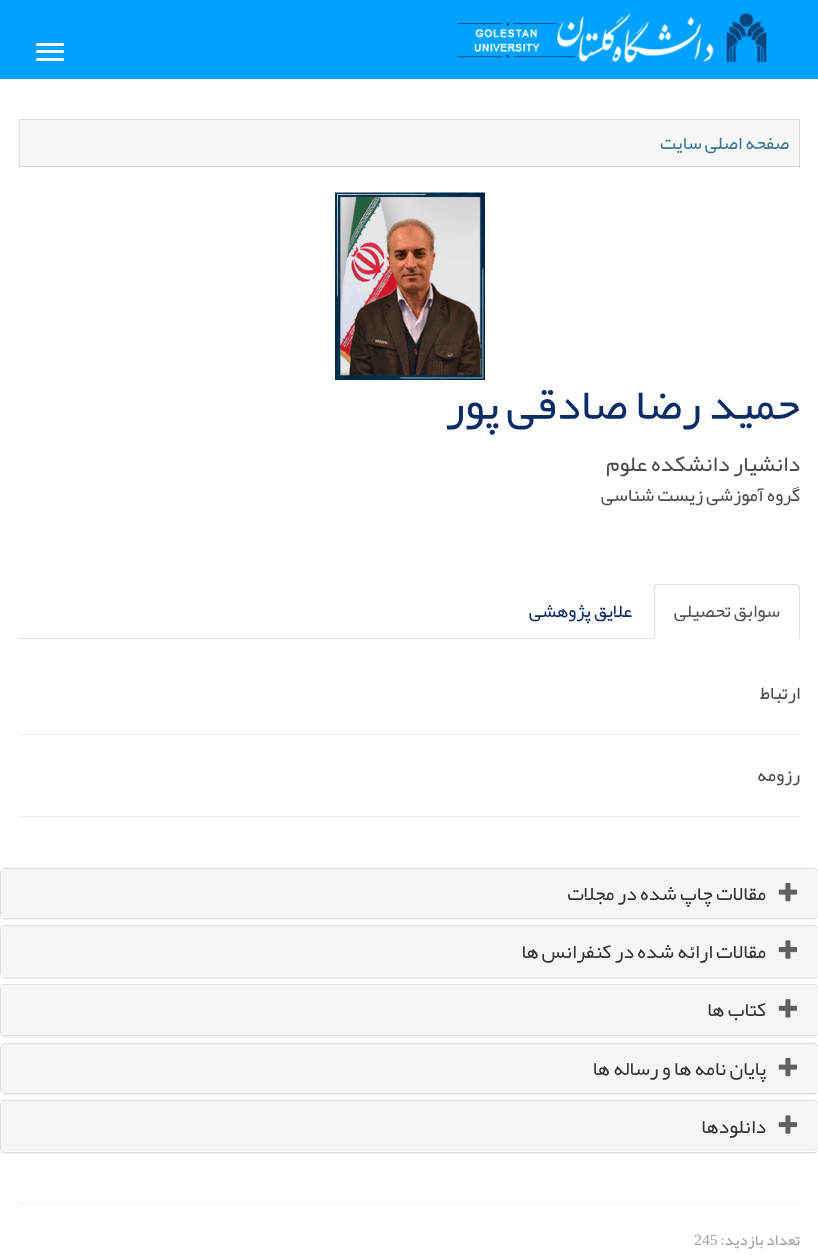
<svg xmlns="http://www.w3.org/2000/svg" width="818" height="1257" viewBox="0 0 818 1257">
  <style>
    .t1 { font: 18.75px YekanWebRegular; direction: rtl; fill: #3e769a; }
    .t2 { font: 45px YekanWebRegular; direction: rtl; fill: #0d2b67; }
    .t3 { font: 22.5px YekanWebRegular; direction: rtl; fill: #4c4c4c; }
    .t4 { font: 18.75px YekanWebRegular; direction: rtl; fill: #4c4c4c; }
    .t5 { font: 18.75px YekanWebRegular; direction: rtl; fill: #555; }
    .t6 { font: 18.75px YekanWebRegular; direction: rtl; fill: #0d2b67; }
    .t7 { font: 20px YekanWebRegular; direction: rtl; fill: #333; }
    .t8 { font: 15.75px YekanWebRegular; direction: rtl; fill: #a0a0a0; }
    .t9 { font: 15.75px Liberation Serif; fill: #a0a0a0; }
  </style>
  <rect width="100%" height="100%" fill="#fff"/>
  <rect x="0" y="0" width="818" height="79" fill="#00a2ff"/>
  <image x="457" y="12" width="310" height="51" href="images/1.png"/>
  <rect x="36" y="43" width="28" height="3" rx="1.5" fill="#fff"/>
  <rect x="36" y="50" width="28" height="3" rx="1.5" fill="#fff"/>
  <rect x="36" y="58" width="28" height="3" rx="1.5" fill="#fff"/>
  <rect x="799" y="119" width="1" height="49" fill="#d9d9d9"/>
  <rect x="19" y="166" width="781" height="1" fill="#d9d9d9"/>
  <rect x="19" y="119" width="1" height="49" fill="#d9d9d9"/>
  <rect x="20" y="120" width="779" height="46" fill="#f7f7f7"/>
  <rect x="20" y="119" width="779" height="1" fill="#d9d9d9"/>
  <text x="789" y="149" class="t1">صفحه اصلی سایت</text>
  <image x="335" y="192" width="150" height="188" href="images/2.png"/>
  <text x="800" y="419" class="t2">حمید رضا صادقی پور</text>
  <text x="800" y="471" class="t3">دانشیار دانشکده علوم</text>
  <text x="800" y="501" class="t4">گروه آموزشی زیست شناسی</text>
  <rect x="19" y="638" width="635" height="1" fill="#ddd"/>
  <path d="M659 584C658 584 656 584 655 585L656 586L659 585H795L798 586V585C798 584 796 584 795 584Z" fill="#ddd"/>
  <path d="M798 585C799 586 800 587 800 589V639L799 638V588L798 586Z" fill="#ddd"/>
  <path d="M655 585C654 586 654 588 654 589V638H655V588L656 586Z" fill="#ddd"/>
  <text x="780" y="617" class="t5">سوابق تحصیلی</text>
  <text x="632" y="617" class="t6">علایق پژوهشی</text>
  <text x="800" y="699" class="t4">ارتباط</text>
  <rect x="19" y="734" width="781" height="1" fill="#eee"/>
  <text x="800" y="781" class="t4">رزومه</text>
  <rect x="19" y="816" width="781" height="1" fill="#eee"/>
  <rect x="0" y="869" width="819" height="51" rx="5" fill="#0000000d" filter="blur(0.5px)"/>
  <rect x="0.5" y="868.5" width="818" height="50" rx="4.5" fill="none" stroke="#ddd"/>
  <path d="M5 869H814C816 869 818 871 818 873V918H1V873C1 871 3 869 5 869Z" fill="#f5f5f5"/>
  <image x="778" y="882" width="20" height="20" href="images/3.png"/>
  <text x="766" y="900" class="t7">مقالات چاپ شده در مجلات</text>
  <rect x="0" y="926" width="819" height="53" rx="5" fill="#0000000d" filter="blur(0.5px)"/>
  <rect x="0.5" y="925.5" width="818" height="52" rx="4.5" fill="#fff" stroke="#ddd"/>
  <path d="M5 926H814C816 926 818 928 818 930V976H1V930C1 928 3 926 5 926Z" fill="#f5f5f5"/>
  <image x="778" y="940" width="20" height="19" href="images/4.png"/>
  <text x="766" y="958" class="t7">مقالات ارائه شده در کنفرانس ها</text>
  <rect x="0" y="985" width="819" height="53" rx="5" fill="#0000000d" filter="blur(0.5px)"/>
  <rect x="0.5" y="984.5" width="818" height="51" rx="4.5" fill="none" stroke="#ddd"/>
  <path d="M5 985H814C816 985 818 987 818 989V1035H1V989C1 987 3 985 5 985Z" fill="#f5f5f5"/>
  <image x="778" y="999" width="20" height="19" href="images/5.png"/>
  <text x="766" y="1016" class="t7">کتاب ها</text>
  <rect x="0" y="1044" width="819" height="51" rx="5" fill="#0000000d" filter="blur(0.5px)"/>
  <rect x="0.5" y="1043.5" width="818" height="50" rx="4.5" fill="none" stroke="#ddd"/>
  <path d="M5 1044H814C816 1044 818 1046 818 1048V1093H1V1048C1 1046 3 1044 5 1044Z" fill="#f5f5f5"/>
  <image x="778" y="1057" width="20" height="20" href="images/3.png"/>
  <text x="766" y="1075" class="t7">پایان نامه ها و رساله ها</text>
  <rect x="0" y="1101" width="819" height="53" rx="5" fill="#0000000d" filter="blur(0.5px)"/>
  <rect x="0.5" y="1100.5" width="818" height="52" rx="4.5" fill="#fff" stroke="#ddd"/>
  <path d="M5 1101H814C816 1101 818 1103 818 1105V1151H1V1105C1 1103 3 1101 5 1101Z" fill="#f5f5f5"/>
  <image x="778" y="1115" width="20" height="19" href="images/4.png"/>
  <text x="766" y="1133" class="t7">دانلودها</text>
  <rect x="19" y="1203" width="781" height="1" fill="#eee"/>
  <text x="800" y="1245" class="t8">تعداد بازدید:</text>
  <text x="694" y="1245" class="t9">245</text>
</svg>
